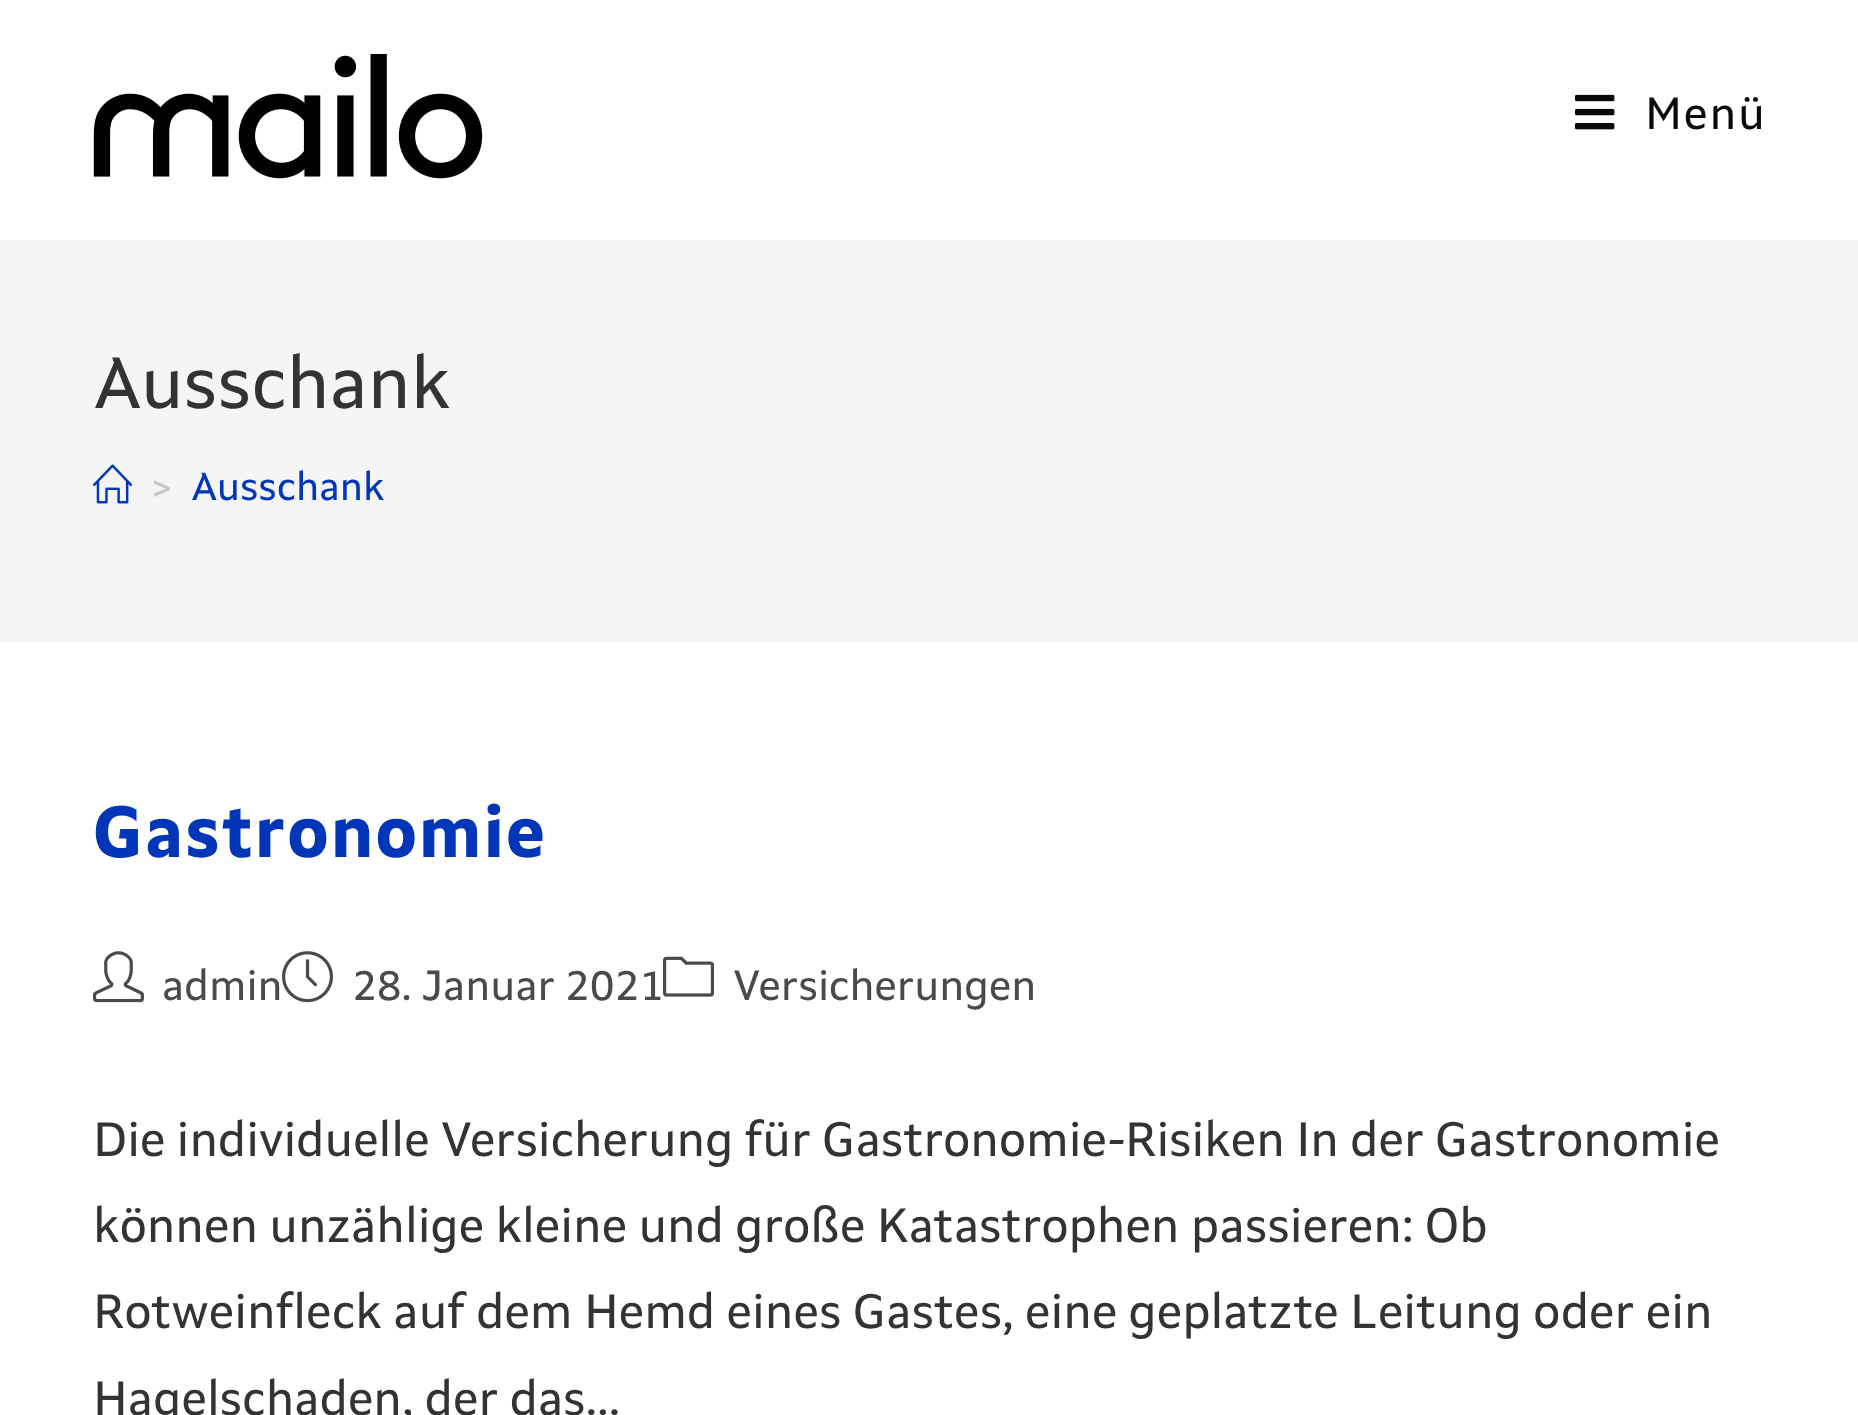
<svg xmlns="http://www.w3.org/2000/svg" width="1858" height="1415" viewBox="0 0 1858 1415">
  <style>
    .t1 { font: 45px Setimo; letter-spacing: 1.75px; fill: #0a0a0a; }
    .t2 { font: 72px Setimo; fill: #333; }
    .t3 { font: 39px Setimo; fill: #c6c6c6; }
    .t4 { font: 39px Setimo; fill: #0036b7; }
    .t5 { font: bold 72px Setimo; letter-spacing: 1.75px; fill: #0036b7; }
    .t6 { font: 42px Setimo; fill: #4a4a4a; }
    .t7 { font: 48px Setimo; fill: #333; }
  </style>
  <rect width="100%" height="100%" fill="#fff"/>
  <image x="93" y="54" width="390" height="125" href="images/1.png"/>
  <image x="1575" y="94" width="40" height="36" href="images/2.png"/>
  <text x="1645" y="129" class="t1">Menü</text>
  <rect x="0" y="240" width="1858" height="402" fill="#f5f5f5"/>
  <text x="93" y="408" class="t2">Ausschank</text>
  <image x="93" y="464" width="40" height="40" href="images/3.png"/>
  <text x="150" y="500" class="t3">&gt;</text>
  <text x="191" y="500" class="t4">Ausschank</text>
  <text x="93" y="857" class="t5">Gastronomie</text>
  <image x="93" y="951" width="51" height="52" href="images/4.png"/>
  <text x="162" y="1000" class="t6">admin</text>
  <image x="282" y="951" width="51" height="52" href="images/5.png"/>
  <text x="352" y="1000" class="t6">28. Januar 2021</text>
  <image x="663" y="956" width="51" height="41" href="images/6.png"/>
  <text x="733" y="1000" class="t6">Versicherungen</text>
  <text x="93" y="1156" class="t7">Die individuelle Versicherung für Gastronomie-Risiken In der Gastronomie</text>
  <text x="93" y="1242" class="t7">können unzählige kleine und große Katastrophen passieren: Ob</text>
  <text x="93" y="1328" class="t7">Rotweinfleck auf dem Hemd eines Gastes, eine geplatzte Leitung oder ein</text>
  <text x="93" y="1415" class="t7">Hagelschaden, der das…</text>
</svg>
